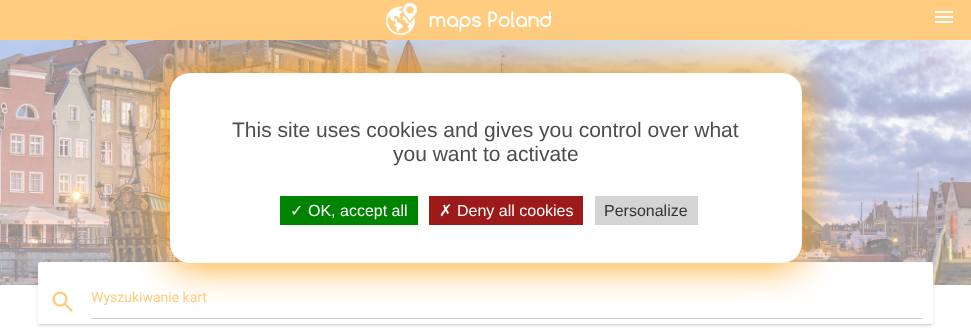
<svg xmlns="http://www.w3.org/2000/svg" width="971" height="336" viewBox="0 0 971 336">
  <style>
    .t1 { font: 21px Liberation Sans; fill: #4d4d4d; }
    .t2 { font: 16px DejaVu Sans; fill: #fff; }
    .t3 { font: 16px Liberation Sans; fill: #fff; }
    .t4 { font: 16px Liberation Sans; fill: #333; }
    .t5 { font: 14px Roboto; fill: #ffcc80; }
  </style>
  <rect width="100%" height="100%" fill="#fff"/>
  <rect x="0" y="0" width="971" height="40" fill="#ffcc80"/>
  <image x="386" y="3" width="165" height="32" href="images/1.png"/>
  <image x="935" y="11" width="18" height="12" href="images/2.png"/>
  <image x="0" y="40" width="971" height="245" href="images/3.png"/>
  <rect x="40" y="267" width="891" height="58" fill="#80808033" filter="blur(0.5px)"/>
  <rect x="38" y="263" width="895" height="62" rx="2" fill="#8080801f" filter="blur(2.5px)"/>
  <rect x="38" y="264" width="895" height="62" rx="2" fill="#80808024" filter="blur(1px)"/>
  <rect x="38" y="262" width="895" height="62" rx="2" fill="#fff"/>
  <rect x="91" y="318" width="831" height="1" fill="#cfcfcf"/>
  <rect x="170" y="73" width="632" height="190" rx="20" fill="#ff9800" filter="blur(20px)"/>
  <rect x="170" y="73" width="632" height="190" rx="20" fill="#fff"/>
  <text x="232" y="137" class="t1">This site uses cookies and gives you control over what</text>
  <text x="393" y="161" class="t1">you want to activate</text>
  <rect x="280" y="196" width="138" height="29" fill="#008300"/>
  <text x="290" y="216" class="t2">✓</text>
  <text x="308" y="216" class="t3">OK, accept all</text>
  <rect x="429" y="196" width="154" height="29" fill="#9c1a1a"/>
  <text x="439" y="216" class="t2">✗</text>
  <text x="457" y="216" class="t3">Deny all cookies</text>
  <rect x="595" y="196" width="103" height="29" fill="#d4d4d4"/>
  <text x="604" y="216" class="t4">Personalize</text>
  <image x="52" y="291" width="21" height="21" href="images/4.png"/>
  <text x="91" y="302" class="t5">Wyszukiwanie kart</text>
</svg>
